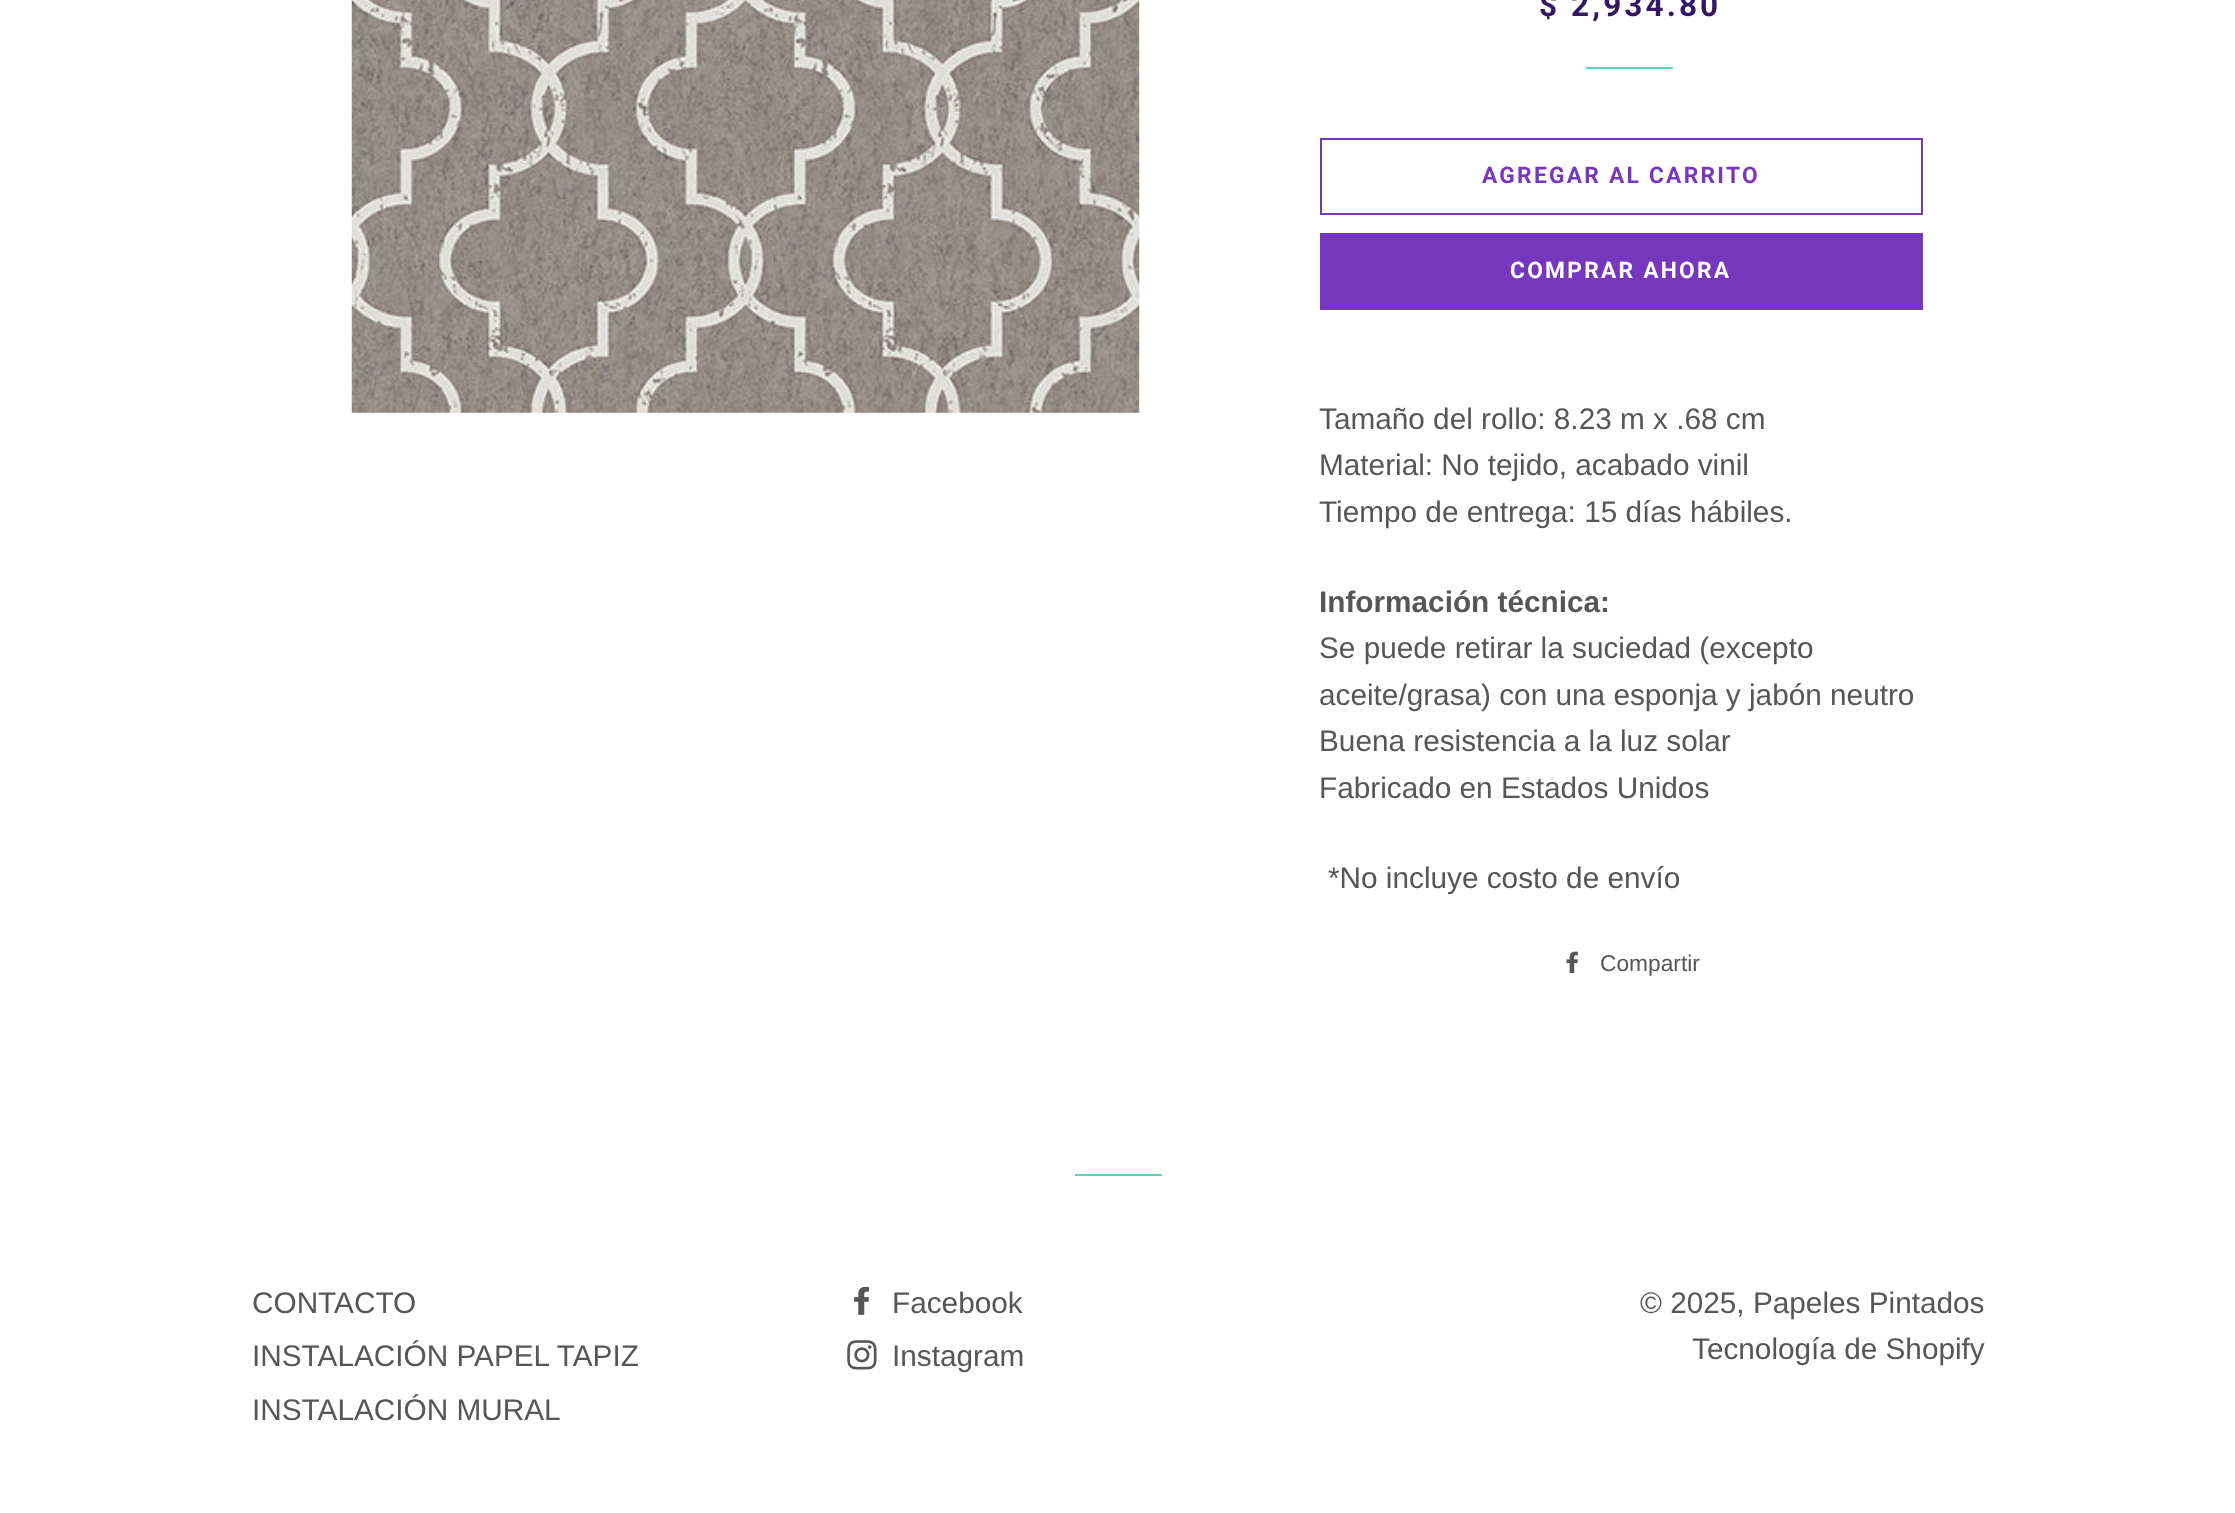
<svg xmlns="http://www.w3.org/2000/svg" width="2235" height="1513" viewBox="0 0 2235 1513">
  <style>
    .t1 { font: bold 31.5px Roboto; letter-spacing: 3.1px; fill: #321863; }
    .t2 { font: bold 22.75px Roboto; letter-spacing: 2.25px; fill: #7737bd; }
    .t3 { font: bold 22.75px Roboto; letter-spacing: 2.25px; fill: #fff; }
    .t4 { font: 29.75px Liberation Sans; fill: #565656; }
    .t5 { font: bold 29.75px Liberation Sans; fill: #565656; }
    .t6 { font: 22.75px Liberation Sans; fill: #565656; }
  </style>
  <rect width="100%" height="100%" fill="#fff"/>
  <image x="351" y="0" width="789" height="413" href="images/1.png"/>
  <text x="1539" y="16" class="t1">$ 2,934.80</text>
  <rect x="1586" y="67" width="87" height="2" fill="#5dd2b4"/>
  <rect x="1321" y="139" width="601" height="75" fill="none" stroke="#7737bd" stroke-width="2"/>
  <text x="1482" y="183" class="t2">AGREGAR AL CARRITO</text>
  <rect x="1320" y="233" width="603" height="77" fill="#7737bd"/>
  <text x="1510" y="278" class="t3">COMPRAR AHORA</text>
  <text x="1319" y="429" class="t4">Tamaño del rollo: 8.23 m x .68 cm</text>
  <text x="1319" y="475" class="t4">Material: No tejido, acabado vinil</text>
  <text x="1319" y="522" class="t4">Tiempo de entrega: 15 días hábiles.</text>
  <text x="1319" y="612" class="t5">Información técnica:</text>
  <text x="1319" y="658" class="t4">Se puede retirar la suciedad (excepto</text>
  <text x="1319" y="705" class="t4">aceite/grasa) con una esponja y jabón neutro</text>
  <text x="1319" y="751" class="t4">Buena resistencia a la luz solar</text>
  <text x="1319" y="798" class="t4">Fabricado en Estados Unidos</text>
  <text x="1328" y="888" class="t4">*No incluye costo de envío</text>
  <image x="1566" y="951" width="12" height="23" href="images/2.png"/>
  <text x="1600" y="971" class="t6">Compartir</text>
  <rect x="1075" y="1174" width="87" height="2" fill="#5dd2b4"/>
  <text x="252" y="1313" class="t4">CONTACTO</text>
  <text x="252" y="1366" class="t4">INSTALACIÓN PAPEL TAPIZ</text>
  <text x="252" y="1420" class="t4">INSTALACIÓN MURAL</text>
  <image x="854" y="1286" width="15" height="29" href="images/3.png"/>
  <text x="892" y="1313" class="t4">Facebook</text>
  <image x="847" y="1340" width="30" height="30" href="images/4.png"/>
  <text x="892" y="1366" class="t4">Instagram</text>
  <text x="1640" y="1313" class="t4">© 2025, Papeles Pintados</text>
  <text x="1692" y="1359" class="t4">Tecnología de Shopify</text>
</svg>
